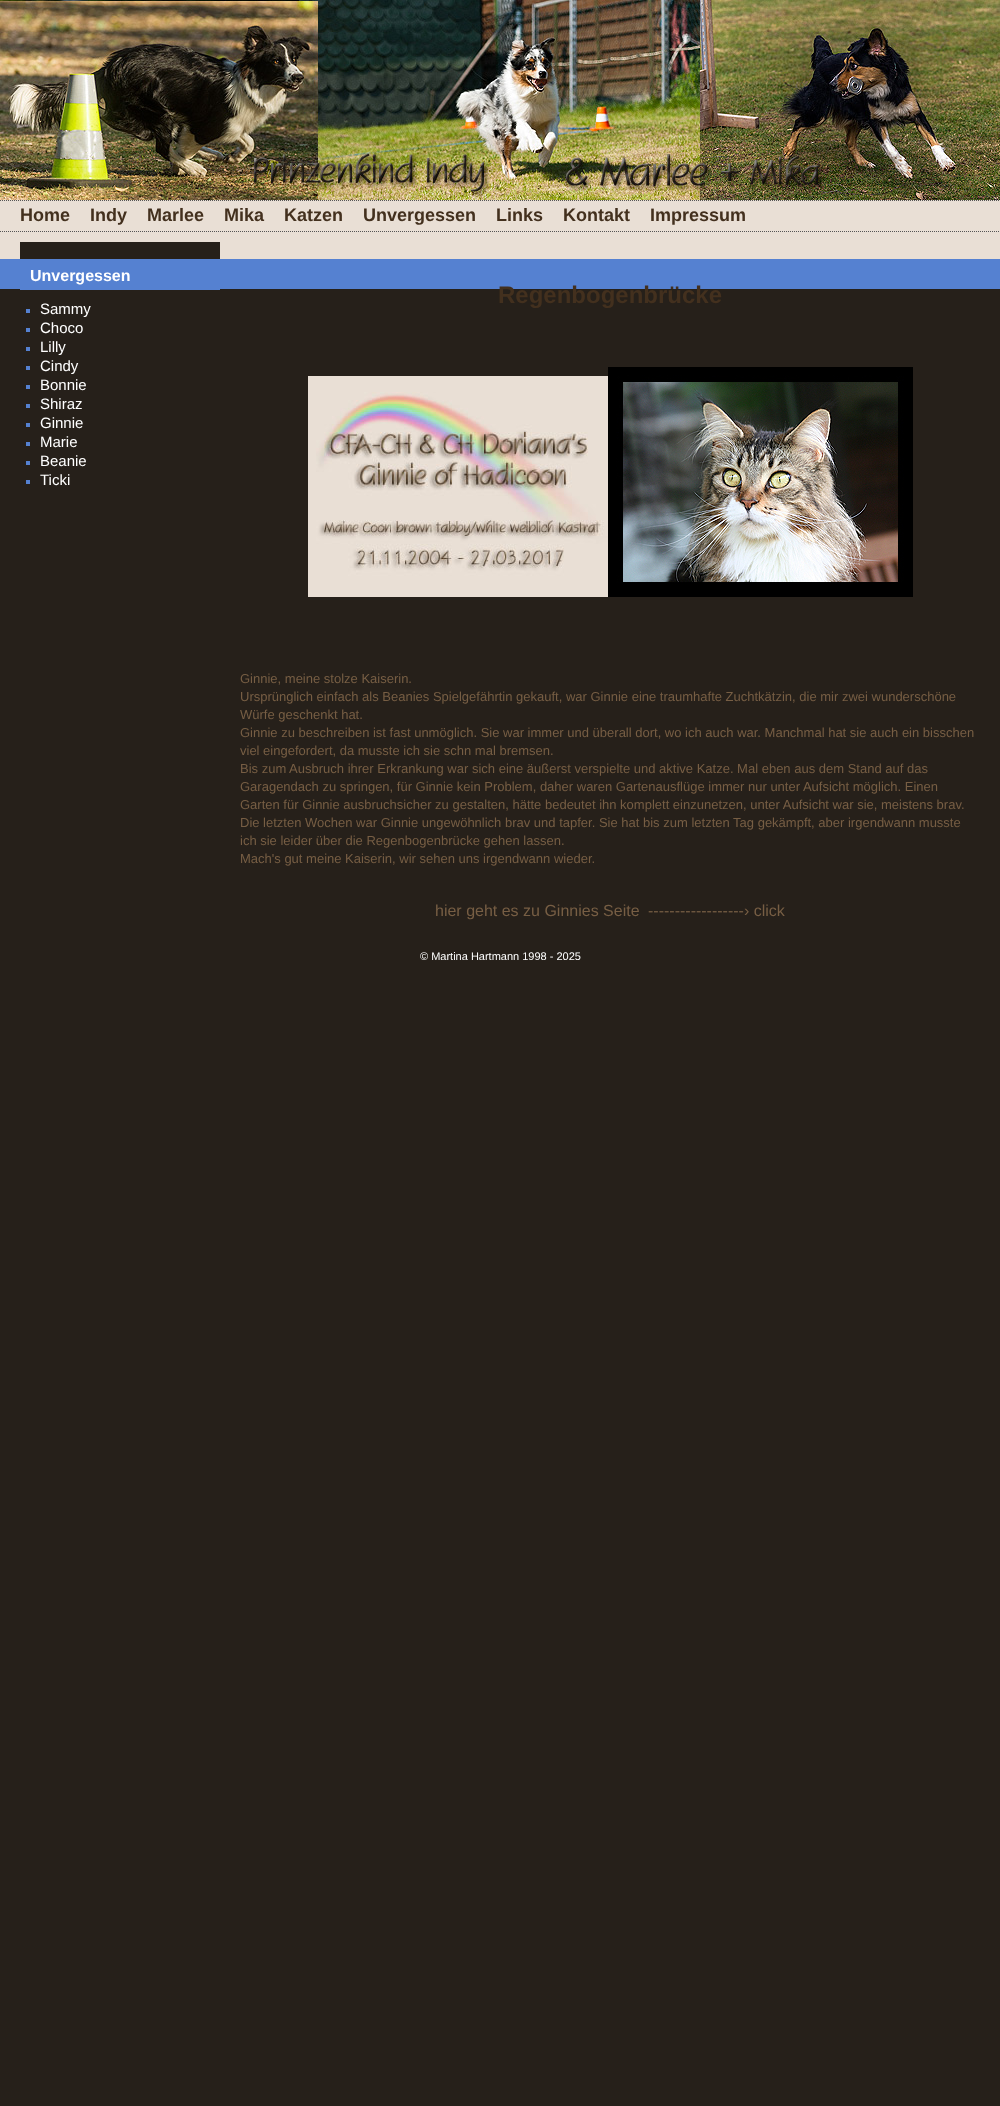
<svg xmlns="http://www.w3.org/2000/svg" width="1000" height="2106" viewBox="0 0 1000 2106">
  <style>
    .t1 { font: bold 18px Liberation Sans; fill: #43301e; }
    .t2 { font: bold 16px Liberation Sans; fill: #fff; }
    .t3 { font: 15px Liberation Sans; fill: #fff; }
    .t4 { font: bold 24px Liberation Sans; fill: #43301e; }
    .t5 { font: 13px Liberation Sans; fill: #775e44; }
    .t6 { font: 16px Liberation Sans; fill: #775e44; }
    .t7 { font: 11px Liberation Sans; fill: #fff; }
  </style>
  <rect width="100%" height="100%" fill="#26201a"/>
  <rect x="0" y="200" width="1000" height="59" fill="#e9dfd5"/>
  <image x="0" y="0" width="1000" height="200" href="images/1.png"/>
  <path d="M0 200.5H1000" fill="none" stroke="#555" stroke-dasharray="1 1"/>
  <path d="M0 231.5H1000" fill="none" stroke="#555" stroke-dasharray="1 1"/>
  <text x="20" y="221" class="t1">Home</text>
  <text x="90" y="221" class="t1">Indy</text>
  <text x="147" y="221" class="t1">Marlee</text>
  <text x="224" y="221" class="t1">Mika</text>
  <text x="284" y="221" class="t1">Katzen</text>
  <text x="363" y="221" class="t1">Unvergessen</text>
  <text x="496" y="221" class="t1">Links</text>
  <text x="563" y="221" class="t1">Kontakt</text>
  <text x="650" y="221" class="t1">Impressum</text>
  <rect x="20" y="242" width="200" height="17" fill="#26201a"/>
  <rect x="20" y="289" width="200" height="1" fill="#5581d1"/>
  <rect x="0" y="259" width="1000" height="30" fill="#5581d1"/>
  <text x="30" y="281" class="t2">Unvergessen</text>
  <rect x="26" y="309" width="4" height="4" fill="#5581d1"/>
  <text x="40" y="314" class="t3">Sammy</text>
  <rect x="26" y="328" width="4" height="4" fill="#5581d1"/>
  <text x="40" y="333" class="t3">Choco</text>
  <rect x="26" y="347" width="4" height="4" fill="#5581d1"/>
  <text x="40" y="352" class="t3">Lilly</text>
  <rect x="26" y="366" width="4" height="4" fill="#5581d1"/>
  <text x="40" y="371" class="t3">Cindy</text>
  <rect x="26" y="385" width="4" height="4" fill="#5581d1"/>
  <text x="40" y="390" class="t3">Bonnie</text>
  <rect x="26" y="404" width="4" height="4" fill="#5581d1"/>
  <text x="40" y="409" class="t3">Shiraz</text>
  <rect x="26" y="423" width="4" height="4" fill="#5581d1"/>
  <text x="40" y="428" class="t3">Ginnie</text>
  <rect x="26" y="442" width="4" height="4" fill="#5581d1"/>
  <text x="40" y="447" class="t3">Marie</text>
  <rect x="26" y="461" width="4" height="4" fill="#5581d1"/>
  <text x="40" y="466" class="t3">Beanie</text>
  <rect x="26" y="480" width="4" height="4" fill="#5581d1"/>
  <text x="40" y="485" class="t3">Ticki</text>
  <text x="498" y="303" class="t4">Regenbogenbrücke</text>
  <image x="308" y="376" width="300" height="221" href="images/2.png"/>
  <image x="608" y="367" width="305" height="230" href="images/3.png"/>
  <text x="240" y="683" class="t5">Ginnie, meine stolze Kaiserin.</text>
  <text x="240" y="701" class="t5">Ursprünglich einfach als Beanies Spielgefährtin gekauft, war Ginnie eine traumhafte Zuchtkätzin, die mir zwei wunderschöne</text>
  <text x="240" y="719" class="t5">Würfe geschenkt hat.</text>
  <text x="240" y="737" class="t5">Ginnie zu beschreiben ist fast unmöglich. Sie war immer und überall dort, wo ich auch war. Manchmal hat sie auch ein bisschen</text>
  <text x="240" y="755" class="t5">viel eingefordert, da musste ich sie schn mal bremsen.</text>
  <text x="240" y="773" class="t5">Bis zum Ausbruch ihrer Erkrankung war sich eine äußerst verspielte und aktive Katze. Mal eben aus dem Stand auf das</text>
  <text x="240" y="791" class="t5">Garagendach zu springen, für Ginnie kein Problem, daher waren Gartenausflüge immer nur unter Aufsicht möglich. Einen</text>
  <text x="240" y="809" class="t5">Garten für Ginnie ausbruchsicher zu gestalten, hätte bedeutet ihn komplett einzunetzen, unter Aufsicht war sie, meistens brav.</text>
  <text x="240" y="827" class="t5">Die letzten Wochen war Ginnie ungewöhnlich brav und tapfer. Sie hat bis zum letzten Tag gekämpft, aber irgendwann musste</text>
  <text x="240" y="845" class="t5">ich sie leider über die Regenbogenbrücke gehen lassen.</text>
  <text x="240" y="863" class="t5">Mach's gut meine Kaiserin, wir sehen uns irgendwann wieder.</text>
  <text x="435" y="916" class="t6">hier geht es zu Ginnies Seite</text>
  <text x="648" y="916" class="t6">------------------› click</text>
  <text x="420" y="960" class="t7">© Martina Hartmann 1998 - 2025</text>
</svg>
